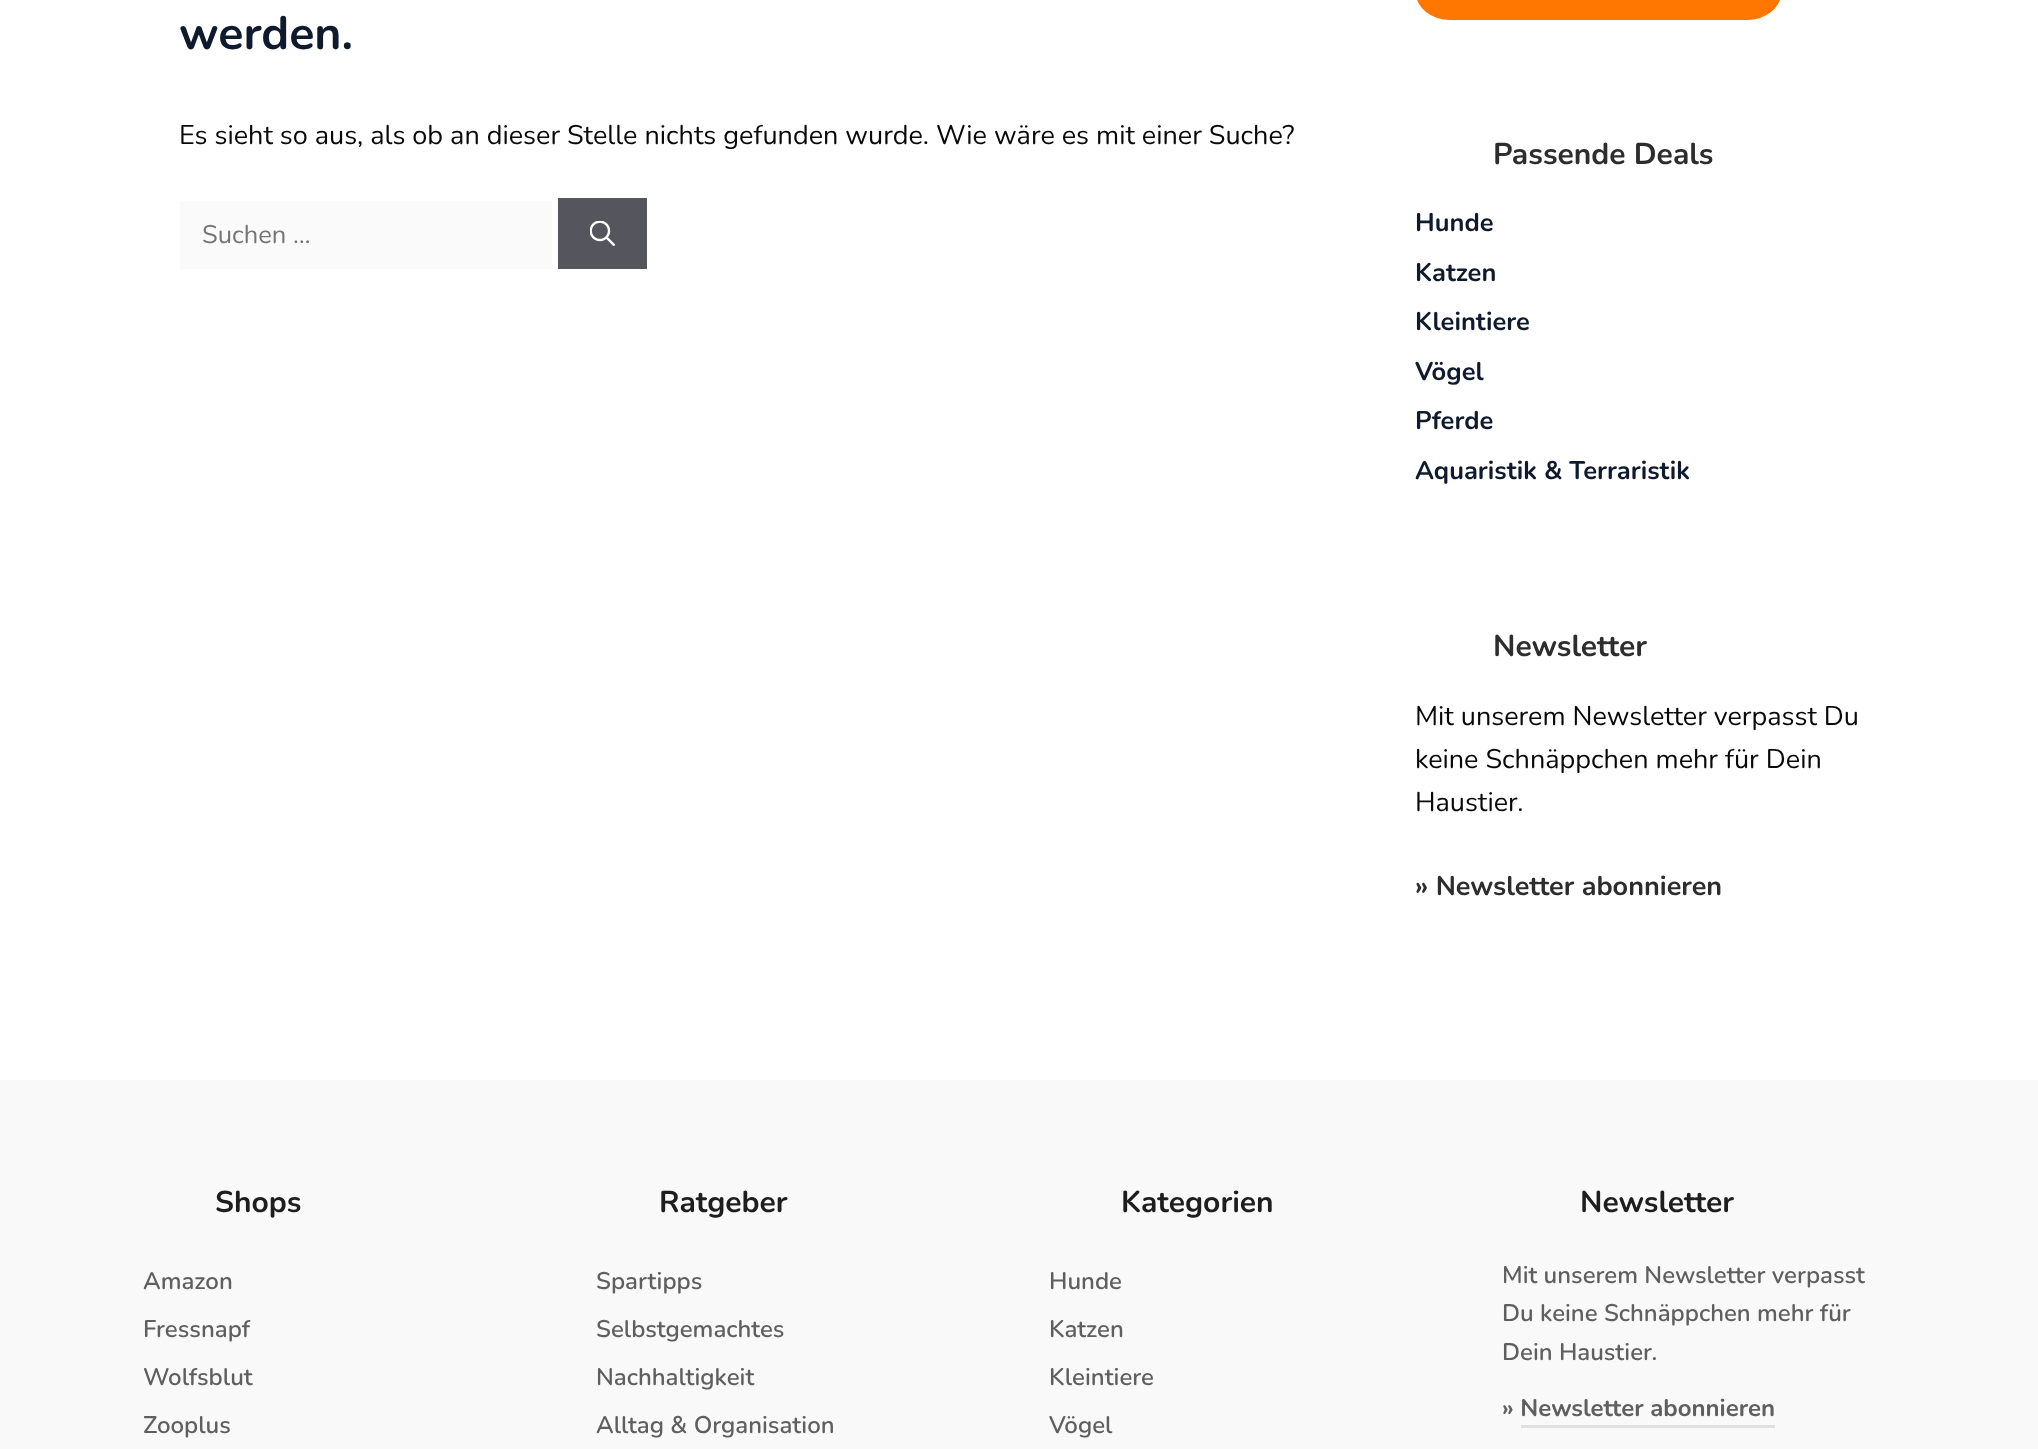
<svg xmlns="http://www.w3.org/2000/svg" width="2038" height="1449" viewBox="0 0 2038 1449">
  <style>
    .t1 { font: bold 46.5px Nunito; fill: #0f1b2d; }
    .t2 { font: 27px Nunito; fill: #0a0808; }
    .t3 { font: 25.5px Nunito; fill: #757575; }
    .t4 { font: bold 30px Nunito; fill: #2d2d2d; }
    .t5 { font: bold 25.5px Nunito; fill: #0f1b2d; }
    .t6 { font: bold 27px Nunito; fill: #2d2d2d; }
    .t7 { font: bold 30px Nunito; fill: #1e1e1e; }
    .t8 { font: 600 24px Nunito; fill: #5f5f5f; }
    .t9 { font: bold 24px Nunito; fill: #5f5f5f; }
  </style>
  <rect width="100%" height="100%" fill="#fff"/>
  <text x="179" y="49" class="t1">werden.</text>
  <text x="179" y="144" class="t2">Es sieht so aus, als ob an dieser Stelle nichts gefunden wurde. Wie wäre es mit einer Suche?</text>
  <rect x="180" y="201" width="372" height="68" fill="#fafafa"/>
  <text x="202" y="243" class="t3">Suchen …</text>
  <rect x="558" y="198" width="89" height="71" fill="#55555e"/>
  <image x="590" y="221" width="25" height="25" href="images/1.png"/>
  <rect x="1416" y="-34" width="365" height="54" rx="34" fill="#f70"/>
  <text x="1493" y="164" class="t4">Passende Deals</text>
  <text x="1415" y="231" class="t5">Hunde</text>
  <text x="1415" y="281" class="t5">Katzen</text>
  <text x="1415" y="330" class="t5">Kleintiere</text>
  <text x="1415" y="380" class="t5">Vögel</text>
  <text x="1415" y="429" class="t5">Pferde</text>
  <text x="1415" y="479" class="t5">Aquaristik &amp; Terraristik</text>
  <text x="1493" y="656" class="t4">Newsletter</text>
  <text x="1415" y="725" class="t2">Mit unserem Newsletter verpasst Du</text>
  <text x="1415" y="768" class="t2">keine Schnäppchen mehr für Dein</text>
  <text x="1415" y="811" class="t2">Haustier.</text>
  <text x="1415" y="895" class="t6">» Newsletter abonnieren</text>
  <rect x="0" y="1080" width="2038" height="369" fill="#f9f9f9"/>
  <text x="215" y="1212" class="t7">Shops</text>
  <text x="143" y="1289" class="t8">Amazon</text>
  <text x="143" y="1337" class="t8">Fressnapf</text>
  <text x="143" y="1385" class="t8">Wolfsblut</text>
  <text x="143" y="1433" class="t8">Zooplus</text>
  <text x="659" y="1212" class="t7">Ratgeber</text>
  <text x="596" y="1289" class="t8">Spartipps</text>
  <text x="596" y="1337" class="t8">Selbstgemachtes</text>
  <text x="596" y="1385" class="t8">Nachhaltigkeit</text>
  <text x="596" y="1433" class="t8">Alltag &amp; Organisation</text>
  <text x="1121" y="1212" class="t7">Kategorien</text>
  <text x="1049" y="1289" class="t8">Hunde</text>
  <text x="1049" y="1337" class="t8">Katzen</text>
  <text x="1049" y="1385" class="t8">Kleintiere</text>
  <text x="1049" y="1433" class="t8">Vögel</text>
  <text x="1580" y="1212" class="t7">Newsletter</text>
  <text x="1502" y="1283" class="t8">Mit unserem Newsletter verpasst</text>
  <text x="1502" y="1321" class="t8">Du keine Schnäppchen mehr für</text>
  <text x="1502" y="1360" class="t8">Dein Haustier.</text>
  <text x="1502" y="1416" class="t9">» Newsletter abonnieren</text>
  <rect x="1521" y="1425" width="254" height="3" fill="#e0e0e0"/>
</svg>
